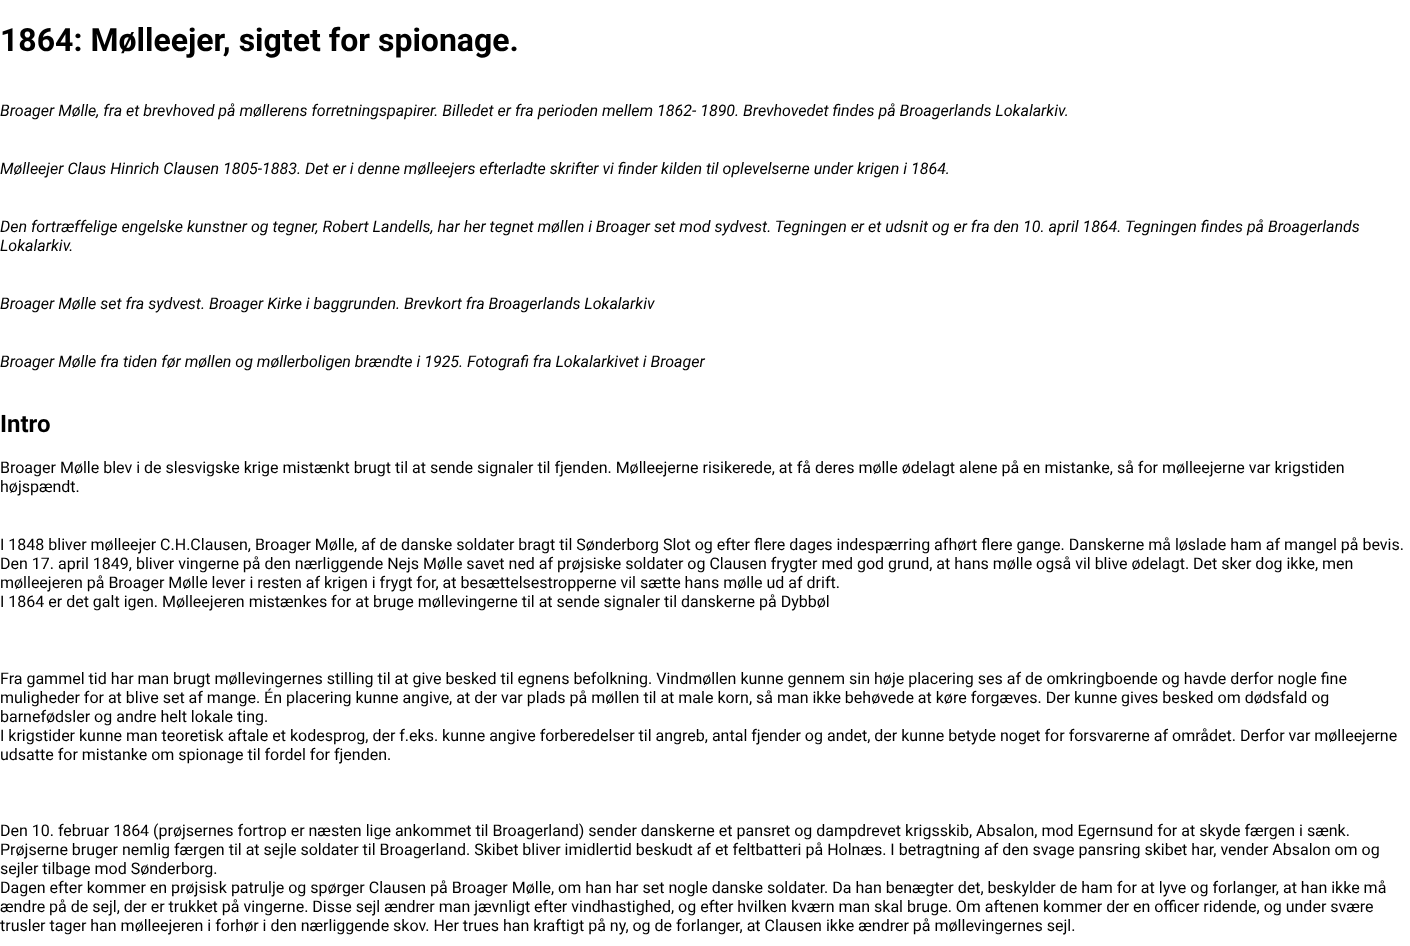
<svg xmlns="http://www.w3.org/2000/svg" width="1410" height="946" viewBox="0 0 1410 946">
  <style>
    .t1 { font: bold 32px Roboto; fill: #000; }
    .t2 { font: italic 16px Roboto; fill: #000; }
    .t3 { font: bold 24px Roboto; fill: #000; }
    .t4 { font: 16px Roboto; fill: #000; }
  </style>
  <rect width="100%" height="100%" fill="#fff"/>
  <text x="0" y="51" class="t1">1864: Mølleejer, sigtet for spionage.</text>
  <text x="0" y="116" class="t2">Broager Mølle, fra et brevhoved på møllerens forretningspapirer. Billedet er fra perioden mellem 1862- 1890. Brevhovedet findes på Broagerlands Lokalarkiv.</text>
  <text x="0" y="174" class="t2">Mølleejer Claus Hinrich Clausen 1805-1883. Det er i denne mølleejers efterladte skrifter vi finder kilden til oplevelserne under krigen i 1864.</text>
  <text x="0" y="232" class="t2">Den fortræffelige engelske kunstner og tegner, Robert Landells, har her tegnet møllen i Broager set mod sydvest. Tegningen er et udsnit og er fra den 10. april 1864. Tegningen findes på Broagerlands</text>
  <text x="0" y="251" class="t2">Lokalarkiv.</text>
  <text x="0" y="309" class="t2">Broager Mølle set fra sydvest. Broager Kirke i baggrunden. Brevkort fra Broagerlands Lokalarkiv</text>
  <text x="0" y="367" class="t2">Broager Mølle fra tiden før møllen og møllerboligen brændte i 1925. Fotografi fra Lokalarkivet i Broager</text>
  <text x="0" y="432" class="t3">Intro</text>
  <text x="0" y="473" class="t4">Broager Mølle blev i de slesvigske krige mistænkt brugt til at sende signaler til fjenden. Mølleejerne risikerede, at få deres mølle ødelagt alene på en mistanke, så for mølleejerne var krigstiden</text>
  <text x="0" y="492" class="t4">højspændt.</text>
  <text x="0" y="550" class="t4">I 1848 bliver mølleejer C.H.Clausen, Broager Mølle, af de danske soldater bragt til Sønderborg Slot og efter flere dages indespærring afhørt flere gange. Danskerne må løslade ham af mangel på bevis.</text>
  <text x="0" y="569" class="t4">Den 17. april 1849, bliver vingerne på den nærliggende Nejs Mølle savet ned af prøjsiske soldater og Clausen frygter med god grund, at hans mølle også vil blive ødelagt. Det sker dog ikke, men</text>
  <text x="0" y="588" class="t4">mølleejeren på Broager Mølle lever i resten af krigen i frygt for, at besættelsestropperne vil sætte hans mølle ud af drift.</text>
  <text x="0" y="607" class="t4">I 1864 er det galt igen. Mølleejeren mistænkes for at bruge møllevingerne til at sende signaler til danskerne på Dybbøl</text>
  <text x="0" y="684" class="t4">Fra gammel tid har man brugt møllevingernes stilling til at give besked til egnens befolkning. Vindmøllen kunne gennem sin høje placering ses af de omkringboende og havde derfor nogle fine</text>
  <text x="0" y="703" class="t4">muligheder for at blive set af mange. Én placering kunne angive, at der var plads på møllen til at male korn, så man ikke behøvede at køre forgæves. Der kunne gives besked om dødsfald og</text>
  <text x="0" y="722" class="t4">barnefødsler og andre helt lokale ting.</text>
  <text x="0" y="741" class="t4">I krigstider kunne man teoretisk aftale et kodesprog, der f.eks. kunne angive forberedelser til angreb, antal fjender og andet, der kunne betyde noget for forsvarerne af området. Derfor var mølleejerne</text>
  <text x="0" y="760" class="t4">udsatte for mistanke om spionage til fordel for fjenden.</text>
  <text x="0" y="836" class="t4">Den 10. februar 1864 (prøjsernes fortrop er næsten lige ankommet til Broagerland) sender danskerne et pansret og dampdrevet krigsskib, Absalon, mod Egernsund for at skyde færgen i sænk.</text>
  <text x="0" y="855" class="t4">Prøjserne bruger nemlig færgen til at sejle soldater til Broagerland. Skibet bliver imidlertid beskudt af et feltbatteri på Holnæs. I betragtning af den svage pansring skibet har, vender Absalon om og</text>
  <text x="0" y="874" class="t4">sejler tilbage mod Sønderborg.</text>
  <text x="0" y="893" class="t4">Dagen efter kommer en prøjsisk patrulje og spørger Clausen på Broager Mølle, om han har set nogle danske soldater. Da han benægter det, beskylder de ham for at lyve og forlanger, at han ikke må</text>
  <text x="0" y="912" class="t4">ændre på de sejl, der er trukket på vingerne. Disse sejl ændrer man jævnligt efter vindhastighed, og efter hvilken kværn man skal bruge. Om aftenen kommer der en officer ridende, og under svære</text>
  <text x="0" y="931" class="t4">trusler tager han mølleejeren i forhør i den nærliggende skov. Her trues han kraftigt på ny, og de forlanger, at Clausen ikke ændrer på møllevingernes sejl.</text>
</svg>
